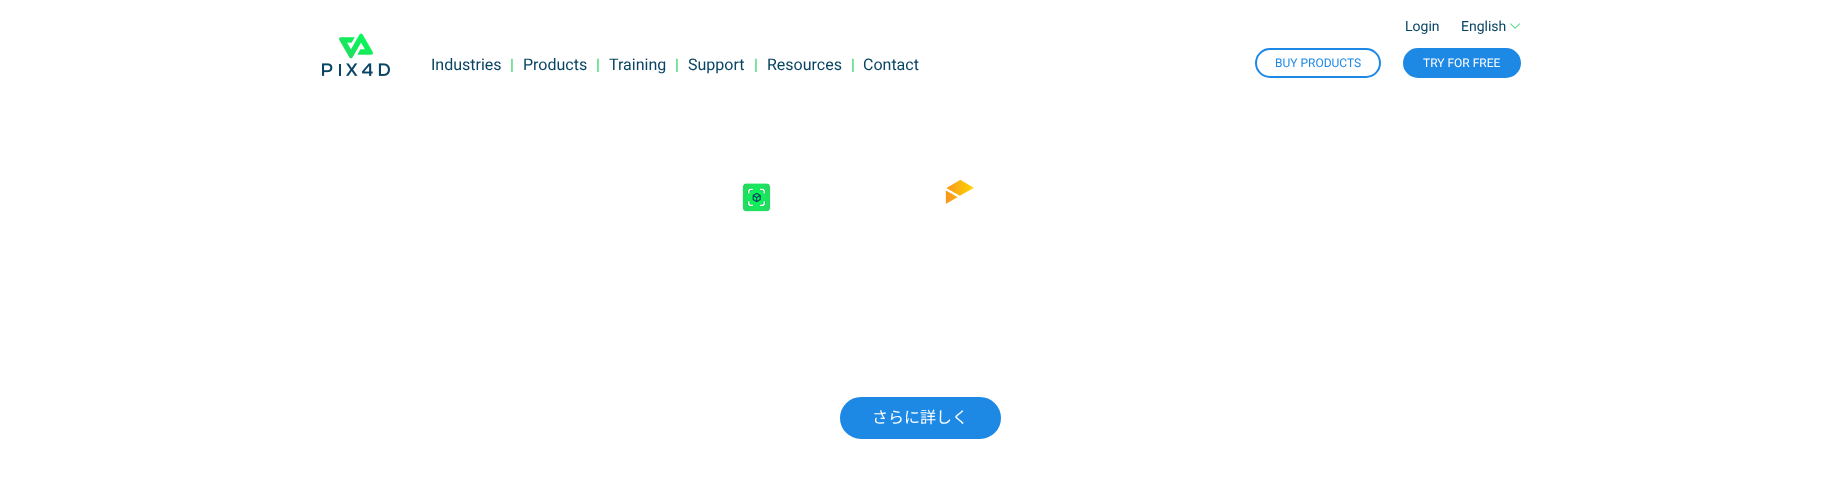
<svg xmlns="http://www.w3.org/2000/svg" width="1841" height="478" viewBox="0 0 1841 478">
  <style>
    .t1 { font: 16px Roboto; fill: #084564; }
    .t2 { font: 16px Roboto; fill: #2ad463; }
    .t3 { font: 14px Roboto; fill: #084564; }
    .t4 { font: 12px Roboto; fill: #1e88e5; }
    .t5 { font: 12px Roboto; fill: #fff; }
    .t6 { font: 16px Noto Sans JP; fill: #fff; }
  </style>
  <rect width="100%" height="100%" fill="#fff"/>
  <image x="322" y="33" width="68" height="43" href="images/1.png"/>
  <text x="431" y="70" class="t1">Industries</text>
  <text x="510" y="70" class="t2">|</text>
  <text x="523" y="70" class="t1">Products</text>
  <text x="596" y="70" class="t2">|</text>
  <text x="609" y="70" class="t1">Training</text>
  <text x="675" y="70" class="t2">|</text>
  <text x="688" y="70" class="t1">Support</text>
  <text x="754" y="70" class="t2">|</text>
  <text x="767" y="70" class="t1">Resources</text>
  <text x="851" y="70" class="t2">|</text>
  <text x="863" y="70" class="t1">Contact</text>
  <text x="1405" y="31" class="t3">Login</text>
  <text x="1461" y="31" class="t3">English</text>
  <image x="1510" y="23" width="10" height="6" href="images/2.png"/>
  <rect x="1256" y="49" width="124" height="28" rx="14" fill="none" stroke="#1e88e5" stroke-width="2"/>
  <text x="1275" y="67" class="t4">BUY PRODUCTS</text>
  <rect x="1404" y="49" width="116" height="28" rx="14" fill="#1e88e5" stroke="#1e88e5" stroke-width="2"/>
  <text x="1423" y="67" class="t5">TRY FOR FREE</text>
  <image x="742" y="183" width="29" height="29" href="images/3.png"/>
  <image x="945" y="179" width="29" height="25" href="images/4.png"/>
  <rect x="841" y="398" width="159" height="40" rx="20" fill="#1e88e5" stroke="#1e88e5" stroke-width="2"/>
  <text x="872" y="423" class="t6">さらに詳しく</text>
</svg>
